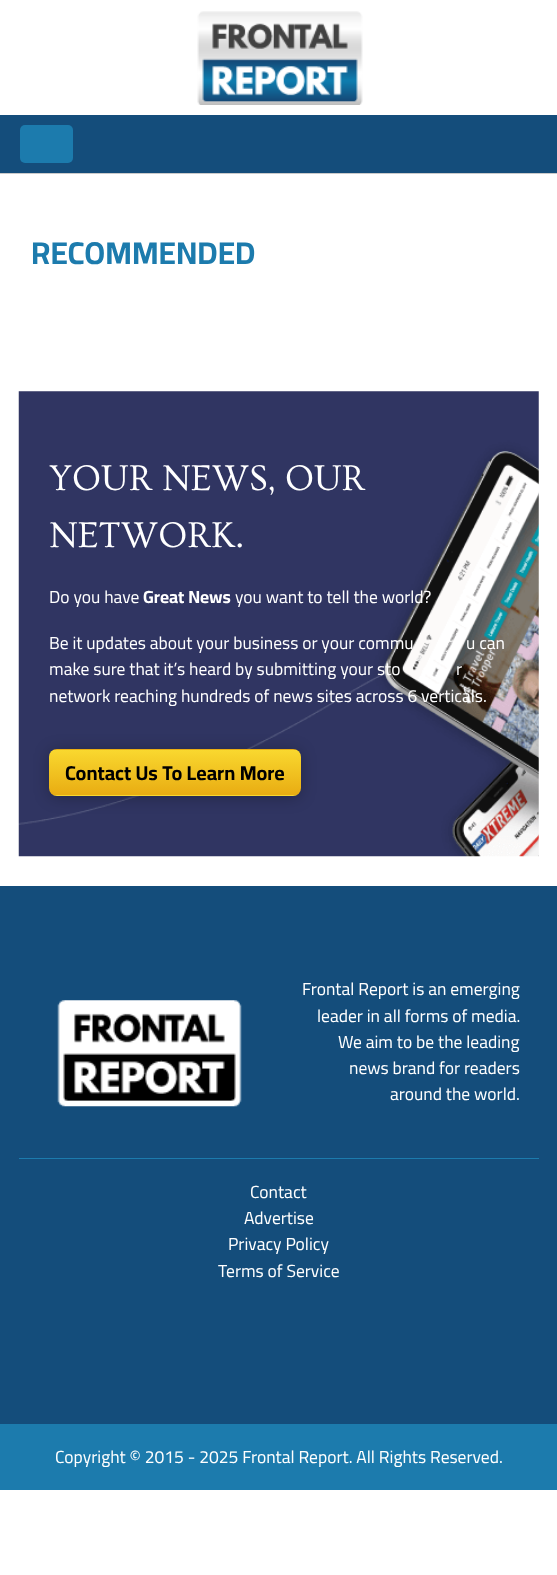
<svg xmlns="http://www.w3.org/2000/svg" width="557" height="1575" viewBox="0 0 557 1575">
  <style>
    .t1 { font: bold 31.5px Cairo; fill: #1c7bad; }
    .t2 { font: 37.5px Ovo; fill: #fff; }
    .t3 { font: 17.5px Cairo; fill: #fff; }
    .t4 { font: bold 17.5px Cairo; fill: #fff; }
    .t5 { font: bold 20px Cairo; fill: #000; }
  </style>
  <defs>
    <clipPath id="clip1"><rect x="49" y="749" width="252" height="47" rx="8"/></clipPath>
    <linearGradient id="g1" gradientUnits="userSpaceOnUse" x1="175" y1="704" x2="175" y2="751"><stop offset="0.02" stop-color="#f9d82f"/><stop offset="0.96" stop-color="#e9ad13"/></linearGradient>
    <linearGradient id="g2" gradientUnits="userSpaceOnUse" x1="-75" y1="749" x2="-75" y2="796"><stop offset="0.02" stop-color="#f9d82f"/><stop offset="0.96" stop-color="#e9ad13"/></linearGradient>
    <linearGradient id="g3" gradientUnits="userSpaceOnUse" x1="175" y1="749" x2="175" y2="796"><stop offset="0.02" stop-color="#f9d82f"/><stop offset="0.96" stop-color="#e9ad13"/></linearGradient>
    <linearGradient id="g4" gradientUnits="userSpaceOnUse" x1="425" y1="749" x2="425" y2="796"><stop offset="0.02" stop-color="#f9d82f"/><stop offset="0.96" stop-color="#e9ad13"/></linearGradient>
    <linearGradient id="g5" gradientUnits="userSpaceOnUse" x1="175" y1="794" x2="175" y2="841"><stop offset="0.02" stop-color="#f9d82f"/><stop offset="0.96" stop-color="#e9ad13"/></linearGradient>
  </defs>
  <rect width="100%" height="100%" fill="#fff"/>
  <image x="197" y="11" width="166" height="94" href="images/1.png"/>
  <rect x="0" y="115" width="557" height="58" fill="#144d7b"/>
  <rect x="0" y="173" width="557" height="1" fill="#cacaca"/>
  <rect x="20" y="125" width="53" height="38" rx="5" fill="#1c7bad"/>
  <text x="31" y="264" class="t1">RECOMMENDED</text>
  <image x="18" y="391" width="521" height="466" href="images/2.png"/>
  <text x="49" y="490" class="t2">YOUR NEWS, OUR</text>
  <text x="49" y="547" class="t2">NETWORK.</text>
  <text x="49" y="603" class="t3">Do you have</text>
  <text x="143" y="603" class="t4">Great News</text>
  <text x="235" y="603" class="t3">you want to tell the world?</text>
  <text x="49" y="649" class="t3">Be it updates about your business or your commu</text>
  <text x="466" y="649" class="t3">u can</text>
  <text x="49" y="675" class="t3">make sure that it’s heard by submitting your sto</text>
  <text x="456" y="675" class="t3">r</text>
  <text x="49" y="702" class="t3">network reaching hundreds of news sites across 6 verticals.</text>
  <rect x="49" y="750" width="252" height="48" rx="8" fill="#00000040" filter="blur(7.5px)"/>
  <g clip-path="url(#clip1)">
    <rect x="50" y="749" width="250" height="1" fill="url(#g1)"/>
    <rect x="49" y="750" width="1" height="45" fill="url(#g2)"/>
    <rect x="50" y="750" width="250" height="45" fill="url(#g3)"/>
    <rect x="300" y="750" width="1" height="45" fill="url(#g4)"/>
    <rect x="50" y="795" width="250" height="1" fill="url(#g5)"/>
  </g>
  <text x="65" y="780" class="t5">Contact Us To Learn More</text>
  <rect x="0" y="886" width="557" height="538" fill="#144d7b"/>
  <image x="57" y="1000" width="185" height="107" href="images/3.png"/>
  <text x="302" y="995" class="t3">Frontal Report is an emerging</text>
  <text x="317" y="1022" class="t3">leader in all forms of media.</text>
  <text x="338" y="1048" class="t3">We aim to be the leading</text>
  <text x="349" y="1074" class="t3">news brand for readers</text>
  <text x="390" y="1100" class="t3">around the world.</text>
  <rect x="19" y="1158" width="520" height="1" fill="#1c7bad"/>
  <text x="250" y="1198" class="t3">Contact</text>
  <text x="244" y="1224" class="t3">Advertise</text>
  <text x="228" y="1250" class="t3">Privacy Policy</text>
  <text x="218" y="1277" class="t3">Terms of Service</text>
  <rect x="0" y="1424" width="557" height="66" fill="#1c7bad"/>
  <text x="55" y="1463" class="t3">Copyright © 2015 - 2025 Frontal Report. All Rights Reserved.</text>
</svg>
